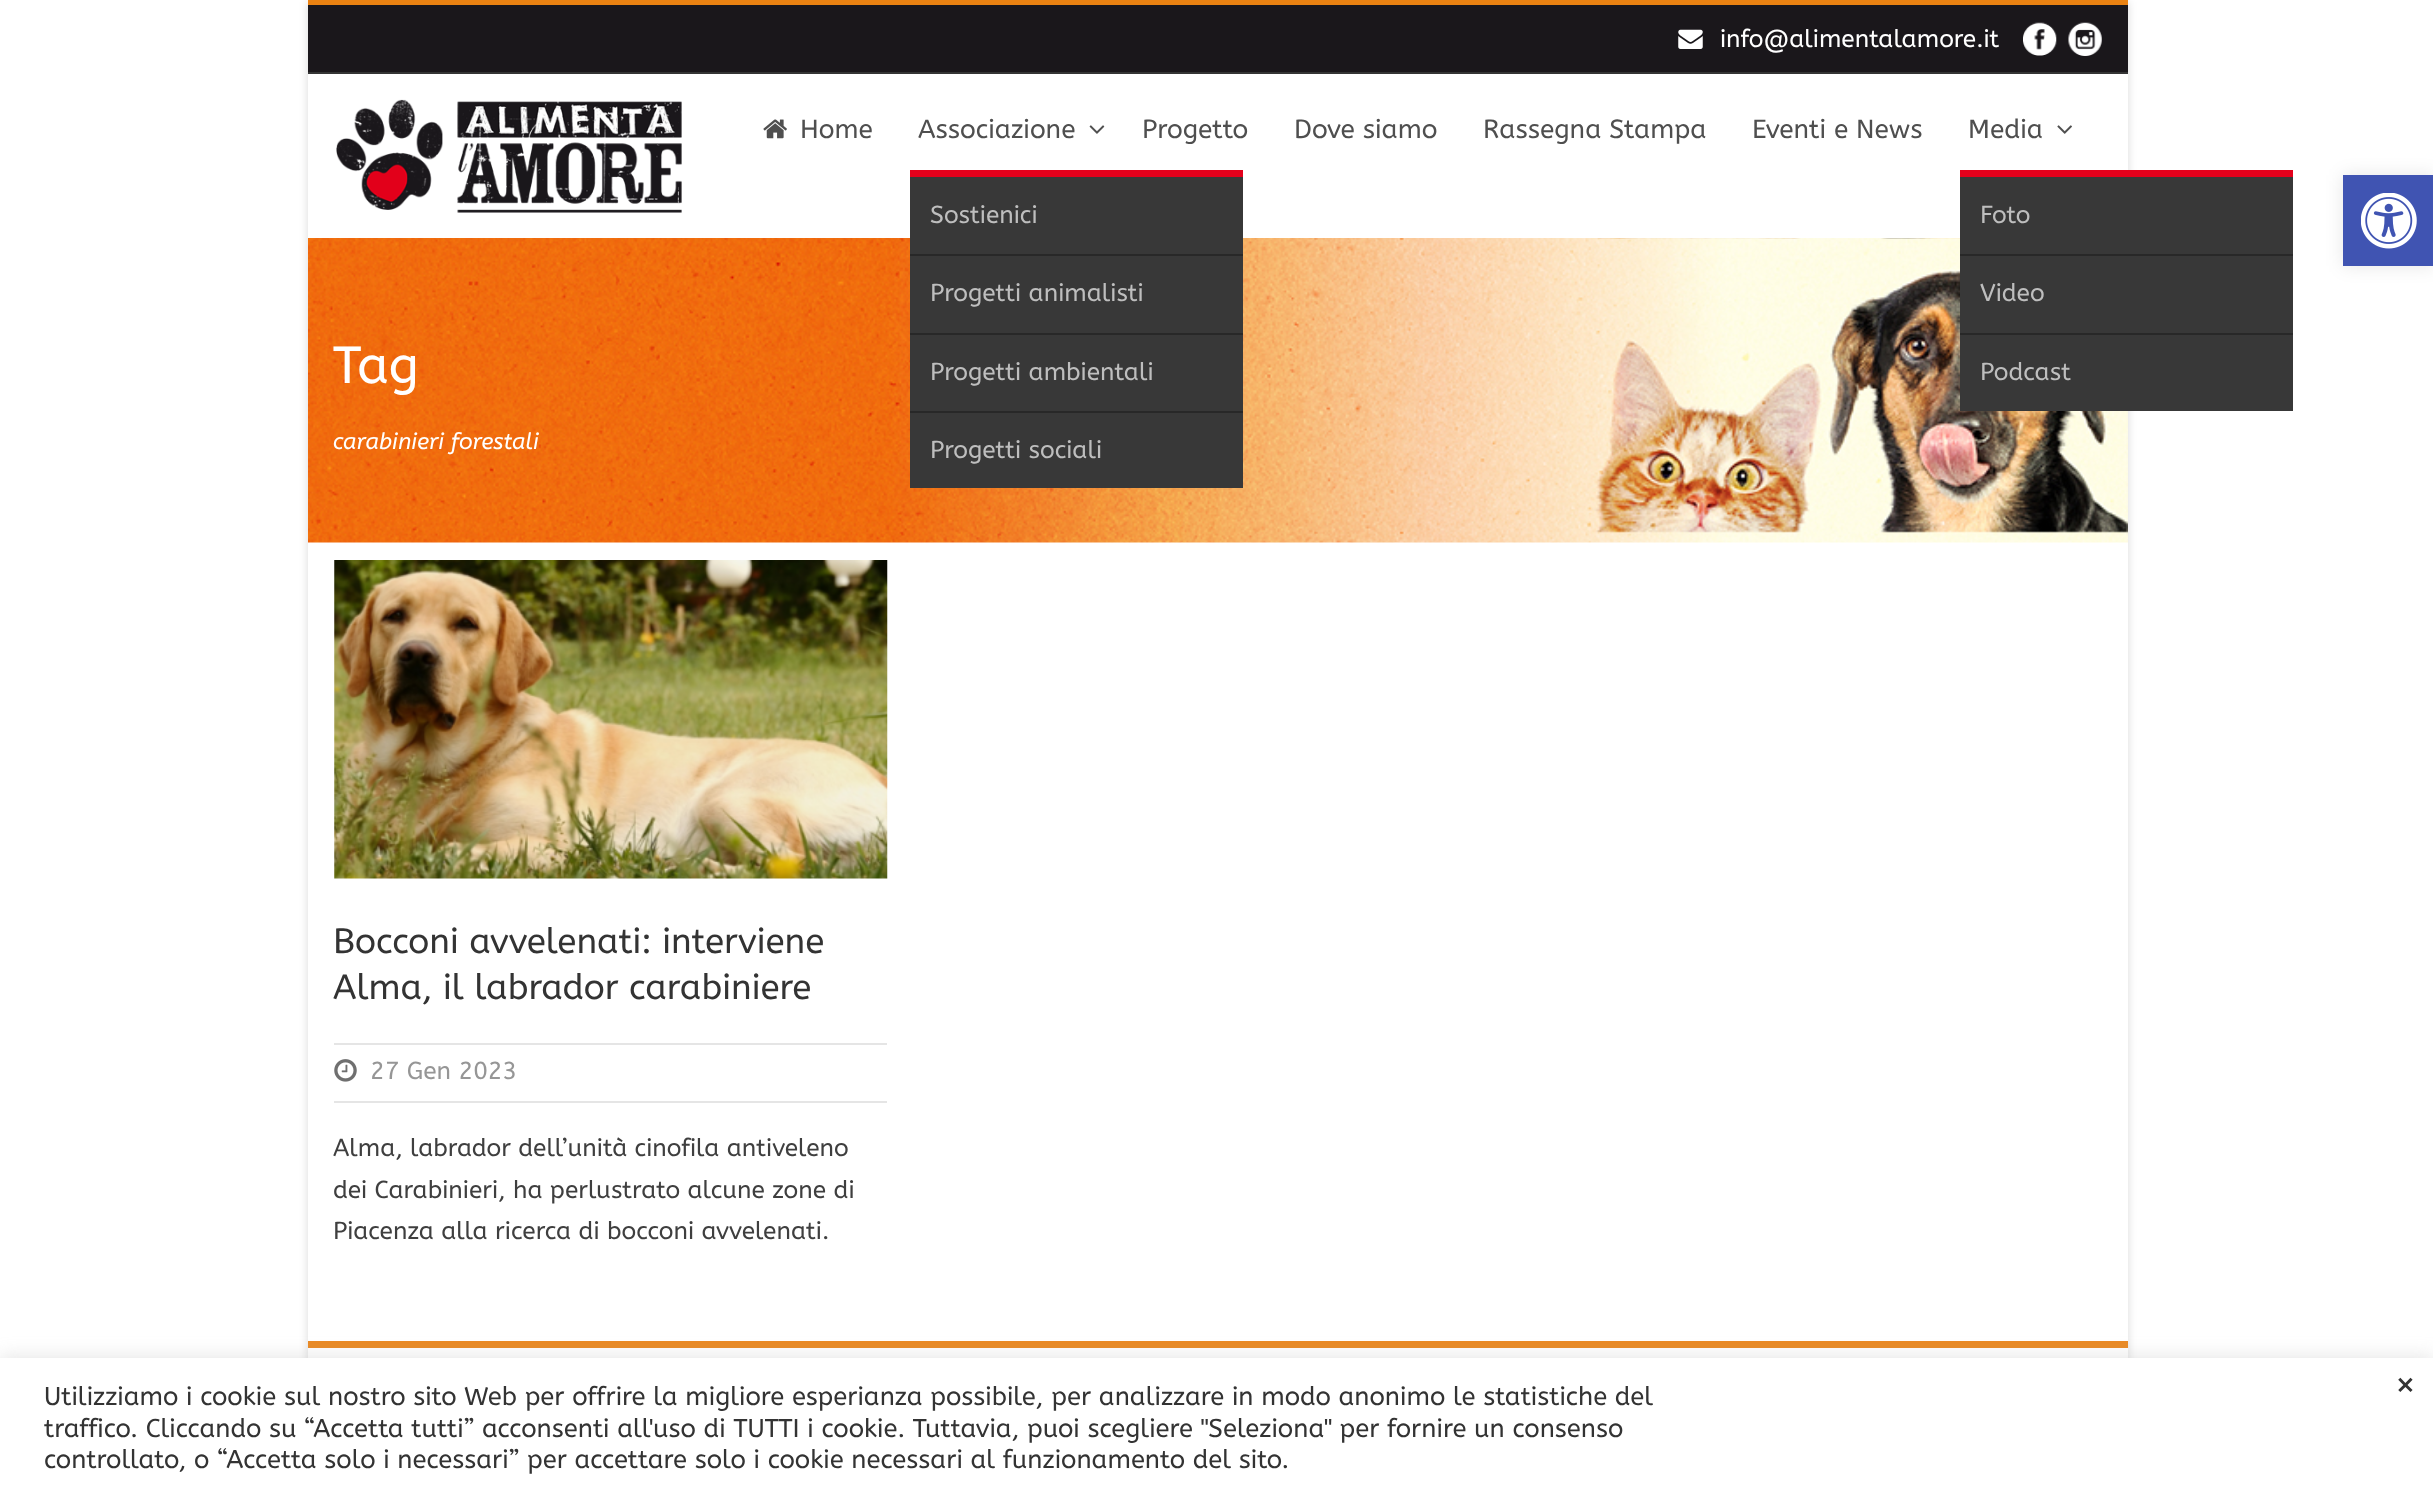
<svg xmlns="http://www.w3.org/2000/svg" width="2433" height="1501" viewBox="0 0 2433 1501">
  <style>
    .t1 { font: 24.5px ABeeZee; fill: #fff; }
    .t2 { font: 52px ABeeZee; fill: #fff; }
    .t3 { font: italic 22.75px ABeeZee; fill: #fff; }
    .t4 { font: 26.25px ABeeZee; fill: #4f4f4f; }
    .t5 { font: 24.5px ABeeZee; fill: #bebebe; }
    .t6 { font: 35px ABeeZee; fill: #333; }
    .t7 { font: 24.5px ABeeZee; fill: #969696; }
    .t8 { font: 24.5px ABeeZee; fill: #3f3f3f; }
    .t9 { font: 25.67px ABeeZee; fill: #333; }
    .t10 { font: 38px ABeeZee; fill: #333; }
  </style>
  <defs>
    <clipPath id="clip1"><path d="M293 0H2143V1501H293ZM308 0H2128V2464H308Z" clip-rule="evenodd"/></clipPath>
  </defs>
  <rect width="100%" height="100%" fill="#fff"/>
  <g clip-path="url(#clip1)">
    <rect x="308" y="2" width="1820" height="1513" fill="#00000026" filter="blur(4.5px)"/>
  </g>
  <rect x="308" y="5" width="1820" height="67" fill="#1a171b"/>
  <rect x="308" y="0" width="1820" height="5" fill="#ea8212"/>
  <rect x="308" y="72" width="1820" height="2" fill="#353535"/>
  <image x="1678" y="29" width="25" height="20" href="images/1.png"/>
  <text x="1720" y="47" class="t1">info@alimentalamore.it</text>
  <image x="2023" y="22" width="34" height="34" href="images/2.png"/>
  <image x="2068" y="22" width="34" height="34" href="images/3.png"/>
  <image x="308" y="238" width="1820" height="305" href="images/4.png"/>
  <text x="333" y="383" class="t2">Tag</text>
  <text x="333" y="449" class="t3">carabinieri forestali</text>
  <image x="336" y="99" width="346" height="114" href="images/5.png"/>
  <image x="763" y="119" width="24" height="20" href="images/6.png"/>
  <text x="800" y="138" class="t4">Home</text>
  <text x="918" y="138" class="t4">Associazione</text>
  <image x="1089" y="125" width="16" height="9" href="images/7.png"/>
  <rect x="910" y="170" width="333" height="7" fill="#e3001b"/>
  <rect x="910" y="177" width="333" height="77" fill="#383838"/>
  <text x="930" y="223" class="t5">Sostienici</text>
  <rect x="910" y="256" width="333" height="77" fill="#383838"/>
  <rect x="910" y="254" width="333" height="2" fill="#282828"/>
  <text x="930" y="301" class="t5">Progetti animalisti</text>
  <rect x="910" y="335" width="333" height="76" fill="#383838"/>
  <rect x="910" y="333" width="333" height="2" fill="#282828"/>
  <text x="930" y="380" class="t5">Progetti ambientali</text>
  <rect x="910" y="413" width="333" height="75" fill="#383838"/>
  <rect x="910" y="411" width="333" height="2" fill="#282828"/>
  <text x="930" y="458" class="t5">Progetti sociali</text>
  <text x="1142" y="138" class="t4">Progetto</text>
  <text x="1294" y="138" class="t4">Dove siamo</text>
  <text x="1483" y="138" class="t4">Rassegna Stampa</text>
  <text x="1752" y="138" class="t4">Eventi e News</text>
  <text x="1968" y="138" class="t4">Media</text>
  <image x="2057" y="125" width="15" height="9" href="images/8.png"/>
  <rect x="1960" y="170" width="333" height="7" fill="#e3001b"/>
  <rect x="1960" y="177" width="333" height="77" fill="#383838"/>
  <text x="1980" y="223" class="t5">Foto</text>
  <rect x="1960" y="256" width="333" height="77" fill="#383838"/>
  <rect x="1960" y="254" width="333" height="2" fill="#282828"/>
  <text x="1980" y="301" class="t5">Video</text>
  <rect x="1960" y="335" width="333" height="76" fill="#383838"/>
  <rect x="1960" y="333" width="333" height="2" fill="#282828"/>
  <text x="1980" y="380" class="t5">Podcast</text>
  <image x="334" y="560" width="554" height="319" href="images/9.png"/>
  <text x="333" y="953" class="t6">Bocconi avvelenati: interviene</text>
  <text x="333" y="999" class="t6">Alma, il labrador carabiniere</text>
  <rect x="334" y="1043" width="553" height="2" fill="#e5e5e5"/>
  <rect x="334" y="1101" width="553" height="2" fill="#e5e5e5"/>
  <image x="334" y="1059" width="23" height="23" href="images/10.png"/>
  <text x="370" y="1079" class="t7">27 Gen 2023</text>
  <text x="333" y="1156" class="t8">Alma, labrador dell’unità cinofila antiveleno</text>
  <text x="333" y="1198" class="t8">dei Carabinieri, ha perlustrato alcune zone di</text>
  <text x="333" y="1239" class="t8">Piacenza alla ricerca di bocconi avvelenati.</text>
  <rect x="308" y="1341" width="1820" height="7" fill="#ea8a24"/>
  <rect x="2343" y="175" width="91" height="91" fill="#0000001a" filter="blur(9px)"/>
  <rect x="2343" y="175" width="90" height="91" fill="#4054b2"/>
  <image x="2361" y="193" width="56" height="56" href="images/11.png"/>
  <rect x="0" y="1356" width="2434" height="144" fill="#acabab4d" filter="blur(9px)"/>
  <rect x="0" y="1358" width="2433" height="143" fill="#fff"/>
  <text x="44" y="1405" class="t9">Utilizziamo i cookie sul nostro sito Web per offrire la migliore esperianza possibile, per analizzare in modo anonimo le statistiche del</text>
  <text x="44" y="1437" class="t9">traffico. Cliccando su “Accetta tutti” acconsenti all'uso di TUTTI i cookie. Tuttavia, puoi scegliere "Seleziona" per fornire un consenso</text>
  <text x="44" y="1468" class="t9">controllato, o “Accetta solo i necessari” per accettare solo i cookie necessari al funzionamento del sito.</text>
  <text x="2394" y="1398" class="t10">×</text>
</svg>
